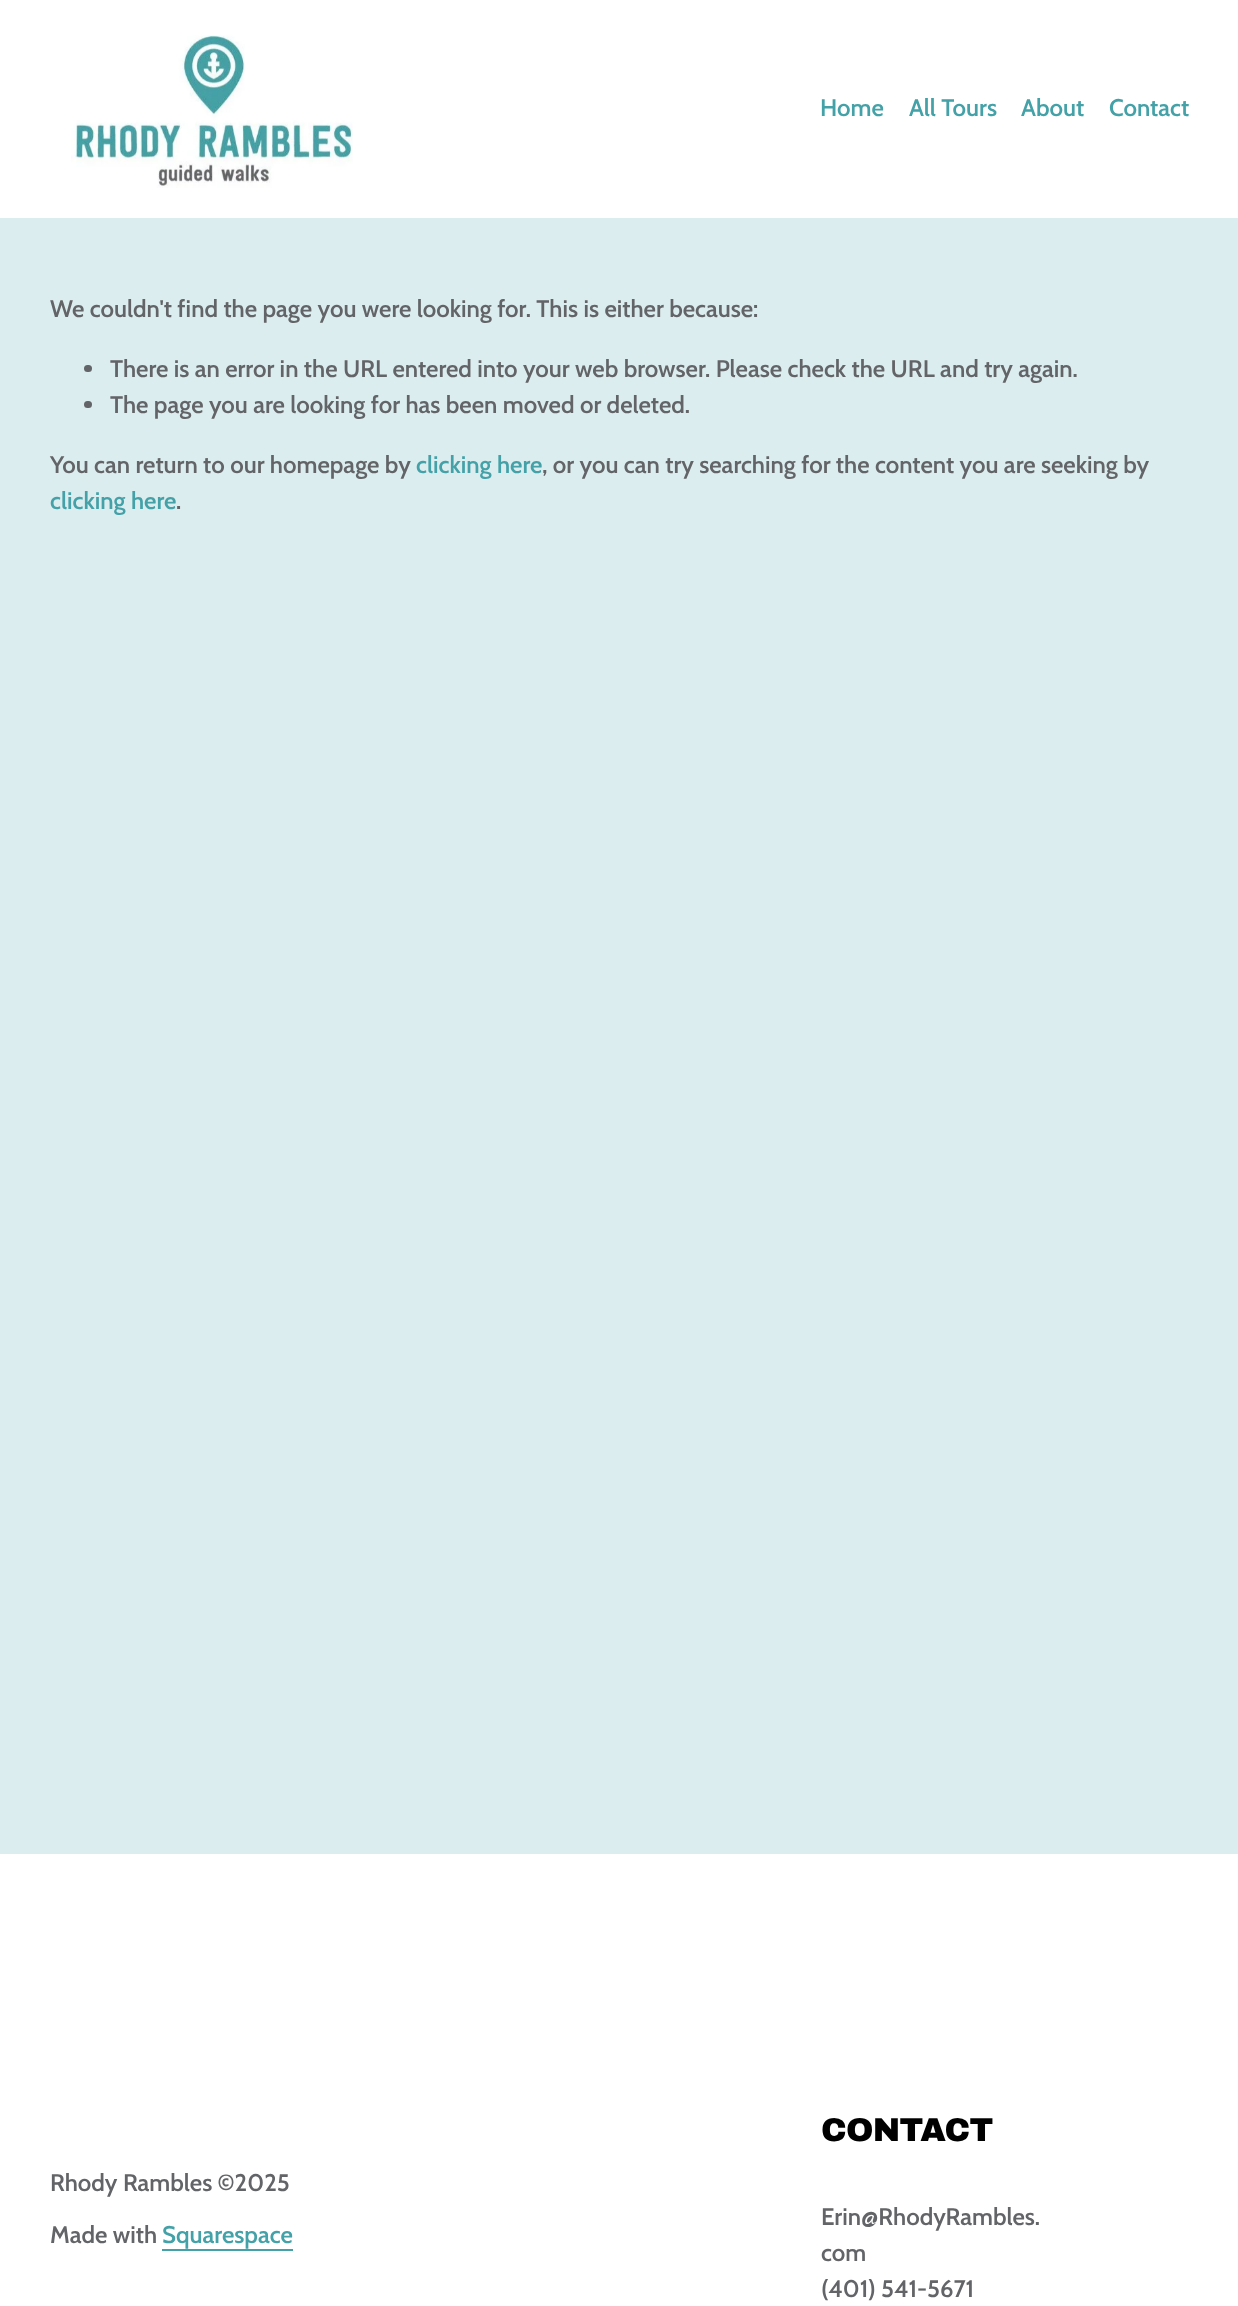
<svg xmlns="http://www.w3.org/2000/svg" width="1238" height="2306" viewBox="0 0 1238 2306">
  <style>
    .t1 { font: 600 24px Cabin; fill: #43a1a7; }
    .t2 { font: 600 24px Cabin; fill: #636467; }
    .t3 { font: 900 33px Archivo Black; letter-spacing: -0.75px; fill: #000; }
  </style>
  <rect width="100%" height="100%" fill="#dcedef"/>
  <rect x="0" y="0" width="1238" height="218" fill="#fff"/>
  <image x="71" y="35" width="282" height="153" href="images/1.png"/>
  <text x="820" y="116" class="t1">Home</text>
  <text x="909" y="116" class="t1">All Tours</text>
  <text x="1021" y="116" class="t1">About</text>
  <text x="1109" y="116" class="t1">Contact</text>
  <text x="50" y="317" class="t2">We couldn't find the page you were looking for. This is either because:</text>
  <rect x="84" y="365" width="8" height="7" rx="3.5" fill="#636467"/>
  <text x="110" y="377" class="t2">There is an error in the URL entered into your web browser. Please check the URL and try again.</text>
  <rect x="84" y="401" width="8" height="7" rx="3.5" fill="#636467"/>
  <text x="110" y="413" class="t2">The page you are looking for has been moved or deleted.</text>
  <text x="50" y="473" class="t2">You can return to our homepage by</text>
  <text x="416" y="473" class="t1">clicking here</text>
  <text x="542" y="473" class="t2">, or you can try searching for the content you are seeking by</text>
  <text x="50" y="509" class="t1">clicking here</text>
  <text x="176" y="509" class="t2">.</text>
  <rect x="0" y="1854" width="1238" height="452" fill="#fff"/>
  <text x="50" y="2191" class="t2">Rhody Rambles ©2025</text>
  <text x="821" y="2141" class="t3">CONTACT</text>
  <text x="821" y="2225" class="t2">Erin@RhodyRambles.</text>
  <text x="821" y="2261" class="t2">com</text>
  <text x="821" y="2297" class="t2">(401) 541-5671</text>
  <text x="50" y="2243" class="t2">Made with</text>
  <text x="162" y="2243" class="t1">Squarespace</text>
  <rect x="162" y="2249" width="131" height="2" fill="#43a1a7"/>
</svg>
